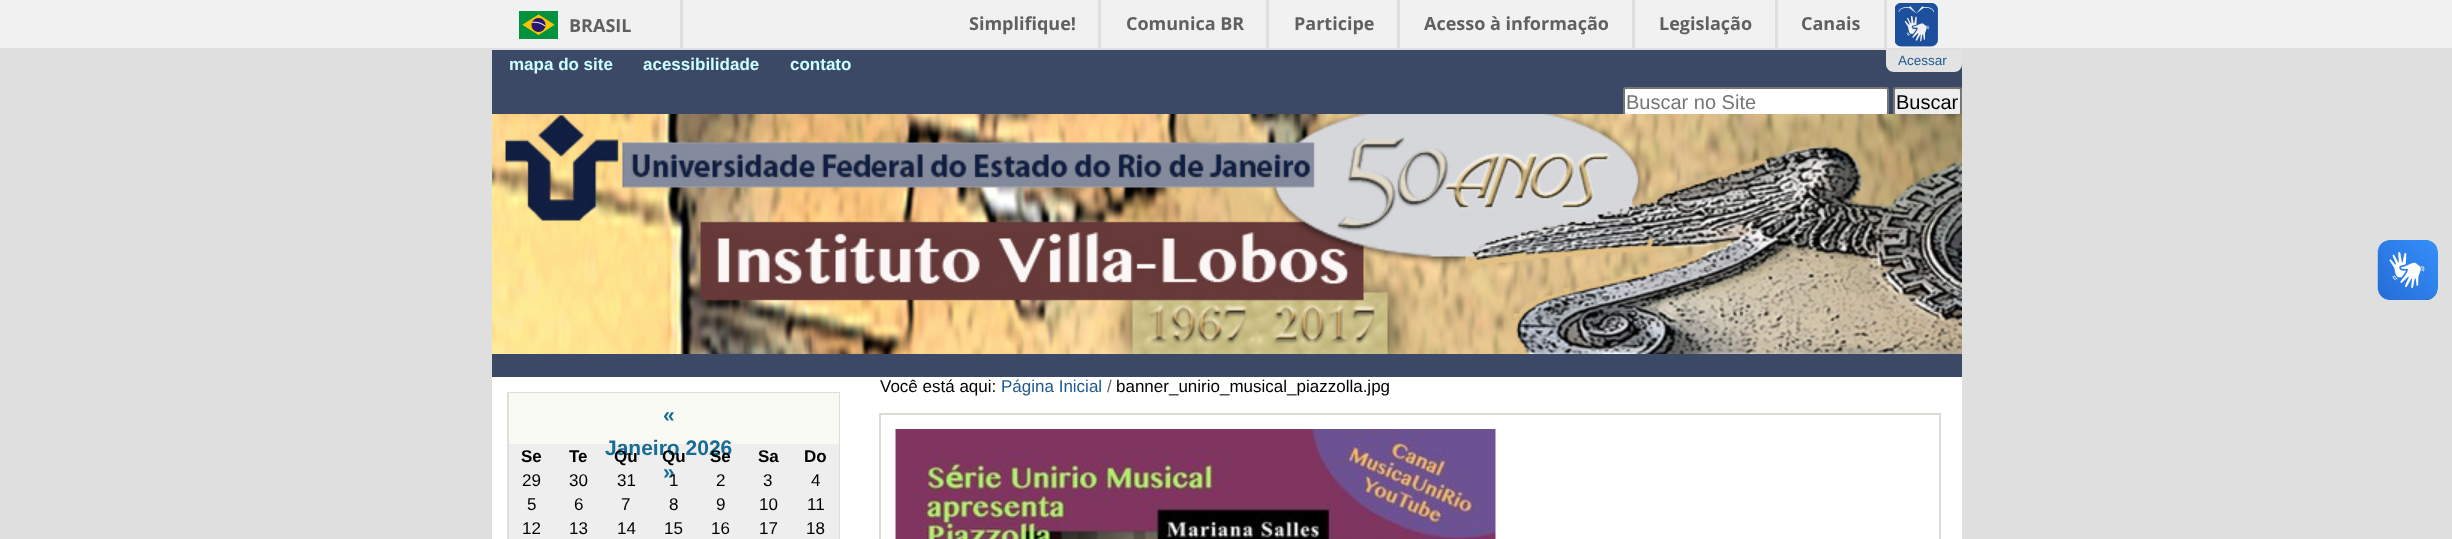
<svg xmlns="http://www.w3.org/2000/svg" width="2452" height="539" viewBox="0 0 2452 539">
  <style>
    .t1 { font: bold 18px Open Sans; fill: #606060; }
    .t2 { font: bold 17px Liberation Sans; fill: #cff; }
    .t3 { font: 13.5px Liberation Sans; fill: #205c90; }
    .t4 { font: 20px Liberation Sans; fill: #757575; }
    .t5 { font: 20px Liberation Sans; fill: #000; }
    .t6 { font: 17px Liberation Sans; fill: #000; }
    .t7 { font: 17px Liberation Sans; fill: #205c90; }
    .t8 { font: 17px Liberation Sans; fill: #666; }
    .t9 { font: bold 21px Liberation Sans; fill: #186c92; }
    .t10 { font: bold 17px Liberation Sans; fill: #000; }
  </style>
  <rect width="100%" height="100%" fill="#dfdfdf"/>
  <rect x="0" y="0" width="2452" height="48" fill="#f1f1f1"/>
  <rect x="680" y="0" width="3" height="48" fill="#dfdfdf"/>
  <image x="519" y="11" width="39" height="28" href="images/1.png"/>
  <text x="569" y="32" class="t1">BRASIL</text>
  <rect x="1098" y="0" width="3" height="48" fill="#dfdfdf"/>
  <text x="969" y="30" class="t1">Simplifique!</text>
  <rect x="1266" y="0" width="3" height="48" fill="#dfdfdf"/>
  <text x="1126" y="30" class="t1">Comunica BR</text>
  <rect x="1397" y="0" width="3" height="48" fill="#dfdfdf"/>
  <text x="1294" y="30" class="t1">Participe</text>
  <rect x="1632" y="0" width="3" height="48" fill="#dfdfdf"/>
  <text x="1424" y="30" class="t1">Acesso à informação</text>
  <rect x="1775" y="0" width="3" height="48" fill="#dfdfdf"/>
  <text x="1659" y="30" class="t1">Legislação</text>
  <rect x="1884" y="0" width="3" height="48" fill="#dfdfdf"/>
  <text x="1801" y="30" class="t1">Canais</text>
  <image x="1895" y="3" width="43" height="44" href="images/2.png"/>
  <rect x="492" y="50" width="1470" height="327" fill="#3b4966"/>
  <text x="509" y="70" class="t2">mapa do site</text>
  <text x="643" y="70" class="t2">acessibilidade</text>
  <text x="790" y="70" class="t2">contato</text>
  <path d="M1886 50H1962V64C1962 68.5 1958.5 72 1954 72H1894C1889.5 72 1886 68.5 1886 64Z" fill="#e3e3e3"/>
  <text x="1898" y="65" class="t3">Acessar</text>
  <rect x="1624" y="88" width="264" height="27" rx="2" fill="#fff" stroke="#767676" stroke-width="2"/>
  <text x="1626" y="109" class="t4">Buscar no Site</text>
  <rect x="1894" y="88" width="67" height="27" rx="2" fill="#efefef" stroke="#767676" stroke-width="2"/>
  <text x="1896" y="109" class="t5">Buscar</text>
  <image x="492" y="114" width="1470" height="240" href="images/3.png"/>
  <rect x="492" y="377" width="1470" height="162" fill="#fff"/>
  <text x="880" y="392" class="t6">Você está aqui:</text>
  <text x="1001" y="392" class="t7">Página Inicial</text>
  <text x="1107" y="392" class="t8">/</text>
  <text x="1116" y="392" class="t6">banner_unirio_musical_piazzolla.jpg</text>
  <rect x="880" y="414" width="1060" height="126" fill="none" stroke="#d8dcd5" stroke-width="2"/>
  <image x="895" y="429" width="601" height="110" href="images/4.png"/>
  <rect x="508" y="393" width="331" height="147" fill="none" stroke="#dde0da" stroke-width="2"/>
  <rect x="509" y="393" width="330" height="51" fill="#f9faf3"/>
  <text x="663" y="422" class="t9">«</text>
  <rect x="509" y="444" width="330" height="24" fill="#eee"/>
  <text x="605" y="455" class="t9">Janeiro 2026</text>
  <rect x="509" y="468" width="330" height="24" fill="#eee"/>
  <text x="663" y="479" class="t9">»</text>
  <text x="521" y="462" class="t10">Se</text>
  <text x="569" y="462" class="t10">Te</text>
  <text x="614" y="462" class="t10">Qu</text>
  <text x="662" y="462" class="t10">Qu</text>
  <text x="710" y="462" class="t10">Se</text>
  <text x="758" y="462" class="t10">Sa</text>
  <text x="804" y="462" class="t10">Do</text>
  <text x="522" y="486" class="t6">29</text>
  <text x="569" y="486" class="t6">30</text>
  <text x="617" y="486" class="t6">31</text>
  <text x="669" y="486" class="t6">1</text>
  <text x="716" y="486" class="t6">2</text>
  <text x="763" y="486" class="t6">3</text>
  <text x="811" y="486" class="t6">4</text>
  <rect x="509" y="492" width="330" height="24" fill="#eee"/>
  <text x="527" y="510" class="t6">5</text>
  <text x="574" y="510" class="t6">6</text>
  <text x="621" y="510" class="t6">7</text>
  <text x="669" y="510" class="t6">8</text>
  <text x="716" y="510" class="t6">9</text>
  <text x="759" y="510" class="t6">10</text>
  <text x="807" y="510" class="t6">11</text>
  <rect x="509" y="516" width="330" height="23" fill="#eee"/>
  <text x="522" y="534" class="t6">12</text>
  <text x="569" y="534" class="t6">13</text>
  <text x="617" y="534" class="t6">14</text>
  <text x="664" y="534" class="t6">15</text>
  <text x="711" y="534" class="t6">16</text>
  <text x="759" y="534" class="t6">17</text>
  <text x="806" y="534" class="t6">18</text>
  <image x="2377" y="240" width="61" height="60" href="images/5.png"/>
  <image x="2378" y="240" width="60" height="60" href="images/6.png"/>
</svg>
